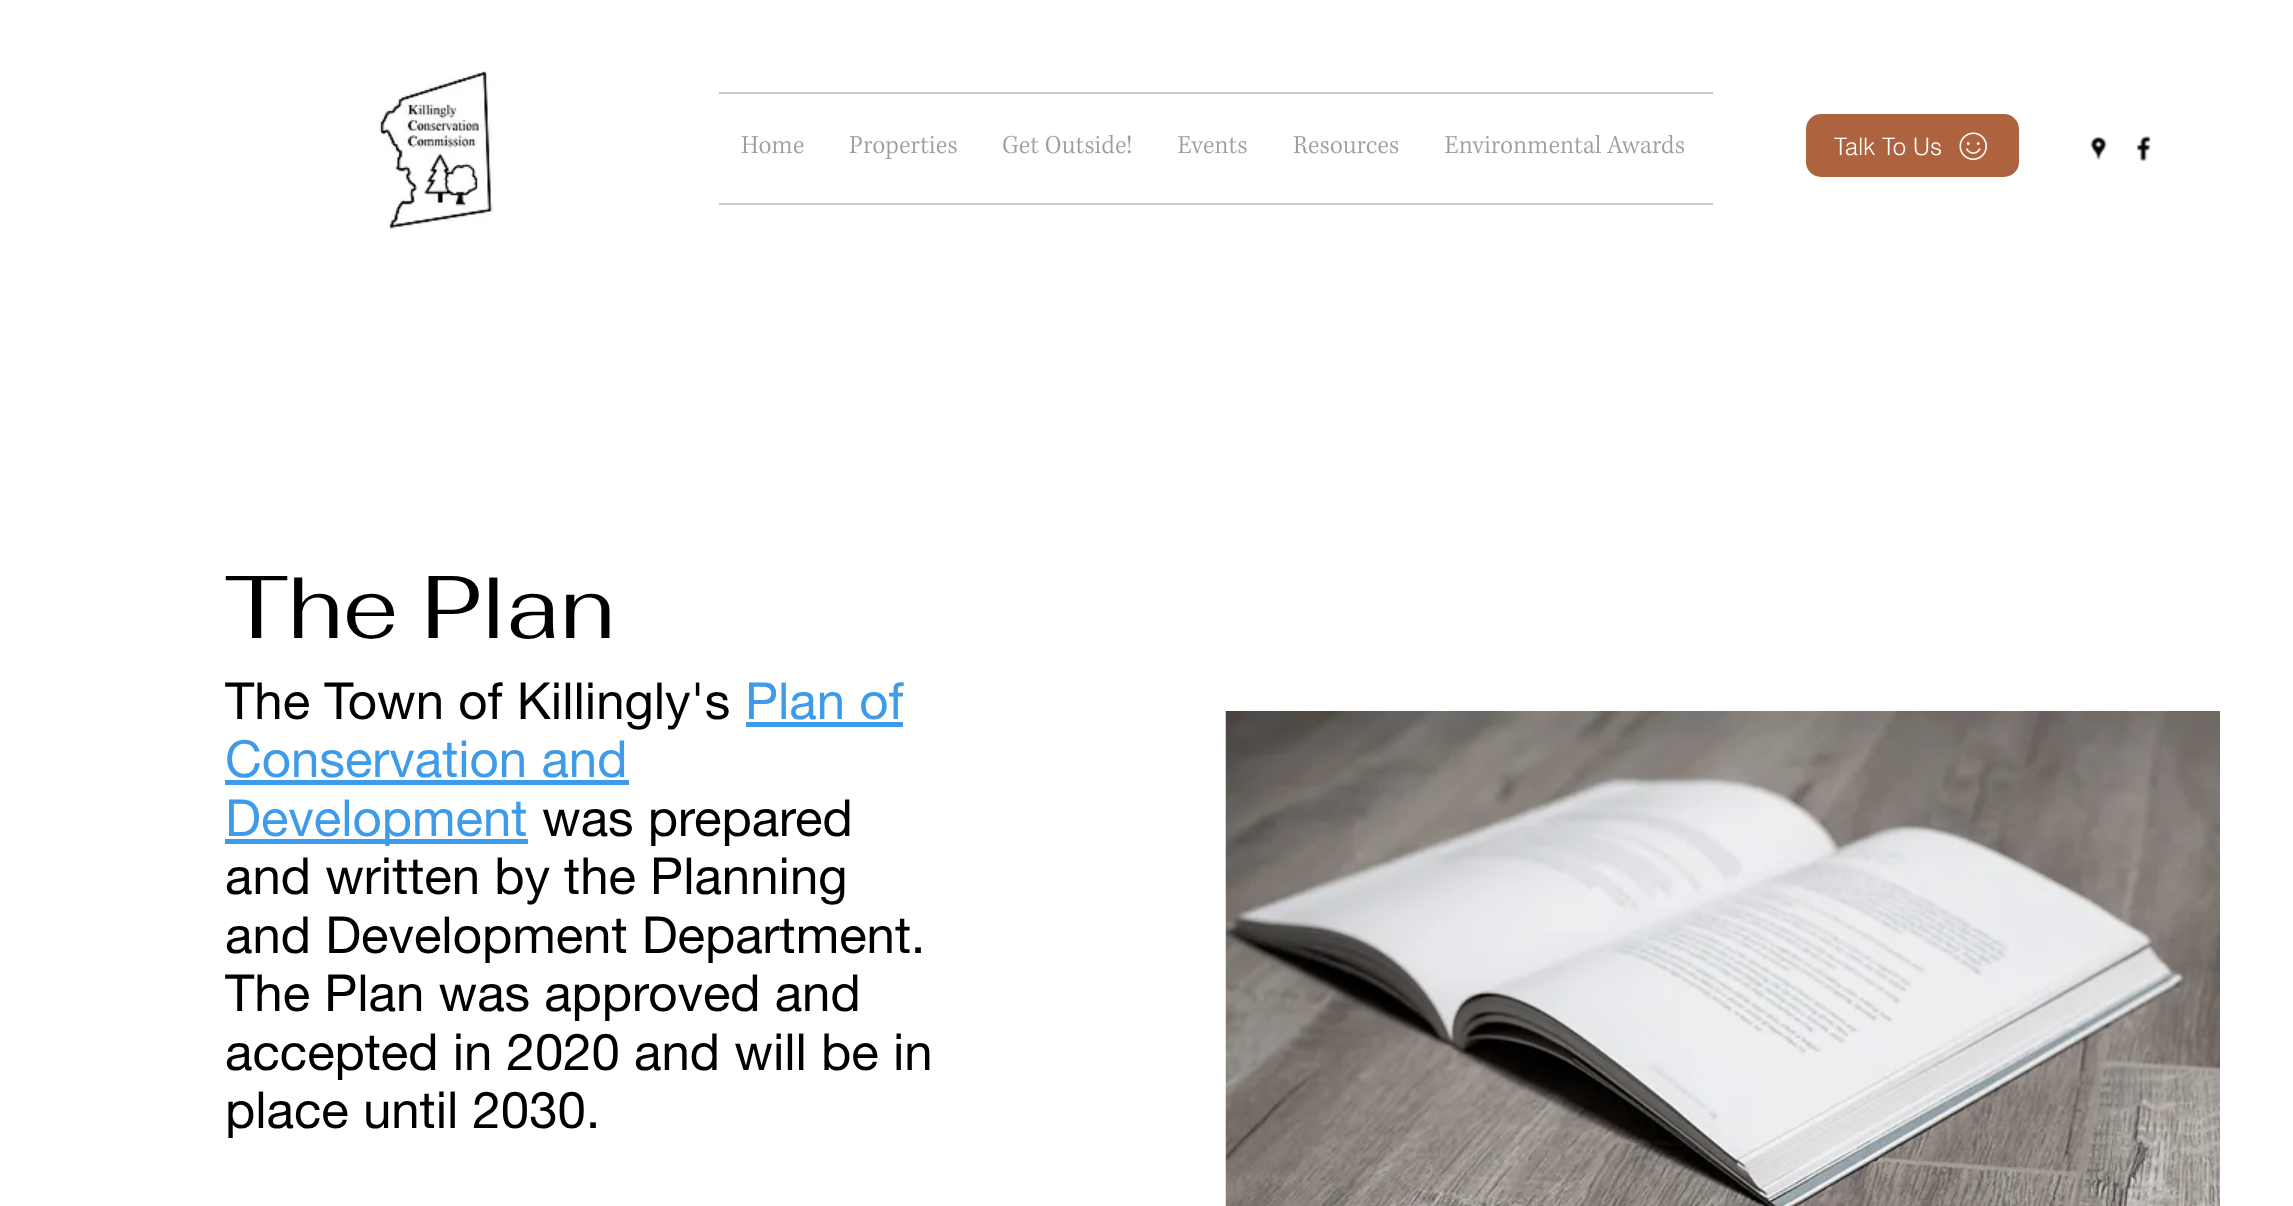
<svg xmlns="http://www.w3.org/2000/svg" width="2293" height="1206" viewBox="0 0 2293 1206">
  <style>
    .t1 { font: 300 24px helvetica; fill: #fff; }
    .t2 { font: 88.5px Fahkwang; fill: #000; }
    .t3 { font: 51px helvetica neue; fill: #000; }
    .t4 { font: 51px helvetica neue; fill: #3d9be9; }
  </style>
  <rect width="100%" height="100%" fill="#fff"/>
  <image x="379" y="71" width="115" height="158" href="images/1.png"/>
  <rect x="719" y="92" width="994" height="2" fill="#cacaca"/>
  <rect x="719" y="203" width="994" height="2" fill="#cacaca"/>
  <image x="741" y="136" width="63" height="18" href="images/2.png"/>
  <image x="849" y="136" width="108" height="24" href="images/3.png"/>
  <image x="1003" y="134" width="128" height="20" href="images/4.png"/>
  <image x="1178" y="136" width="69" height="18" href="images/5.png"/>
  <image x="1293" y="136" width="106" height="18" href="images/6.png"/>
  <image x="1445" y="135" width="240" height="19" href="images/7.png"/>
  <rect x="1806" y="114" width="213" height="63" rx="15" fill="#ae633f"/>
  <text x="1834" y="155" class="t1">Talk To Us</text>
  <image x="1959" y="132" width="29" height="29" href="images/8.png"/>
  <image x="2090" y="136" width="17" height="24" href="images/9.png"/>
  <image x="2136" y="135" width="15" height="27" href="images/10.png"/>
  <text x="225" y="638" class="t2">The Plan</text>
  <text x="225" y="719" class="t3">The Town of Killingly's</text>
  <text x="745" y="719" class="t4">Plan of</text>
  <rect x="746" y="722" width="157" height="5" fill="#3d9be9"/>
  <text x="225" y="777" class="t4">Conservation and</text>
  <rect x="225" y="780" width="404" height="5" fill="#3d9be9"/>
  <rect x="225" y="839" width="303" height="5" fill="#3d9be9"/>
  <text x="225" y="836" class="t4">Development</text>
  <text x="542" y="836" class="t3">was prepared</text>
  <text x="225" y="894" class="t3">and written by the Planning</text>
  <text x="225" y="953" class="t3">and Development Department.</text>
  <text x="225" y="1011" class="t3">The Plan was approved and</text>
  <text x="225" y="1070" class="t3">accepted in 2020 and will be in</text>
  <text x="225" y="1128" class="t3">place until 2030.</text>
  <image x="1225" y="711" width="995" height="495" href="images/11.png"/>
</svg>
